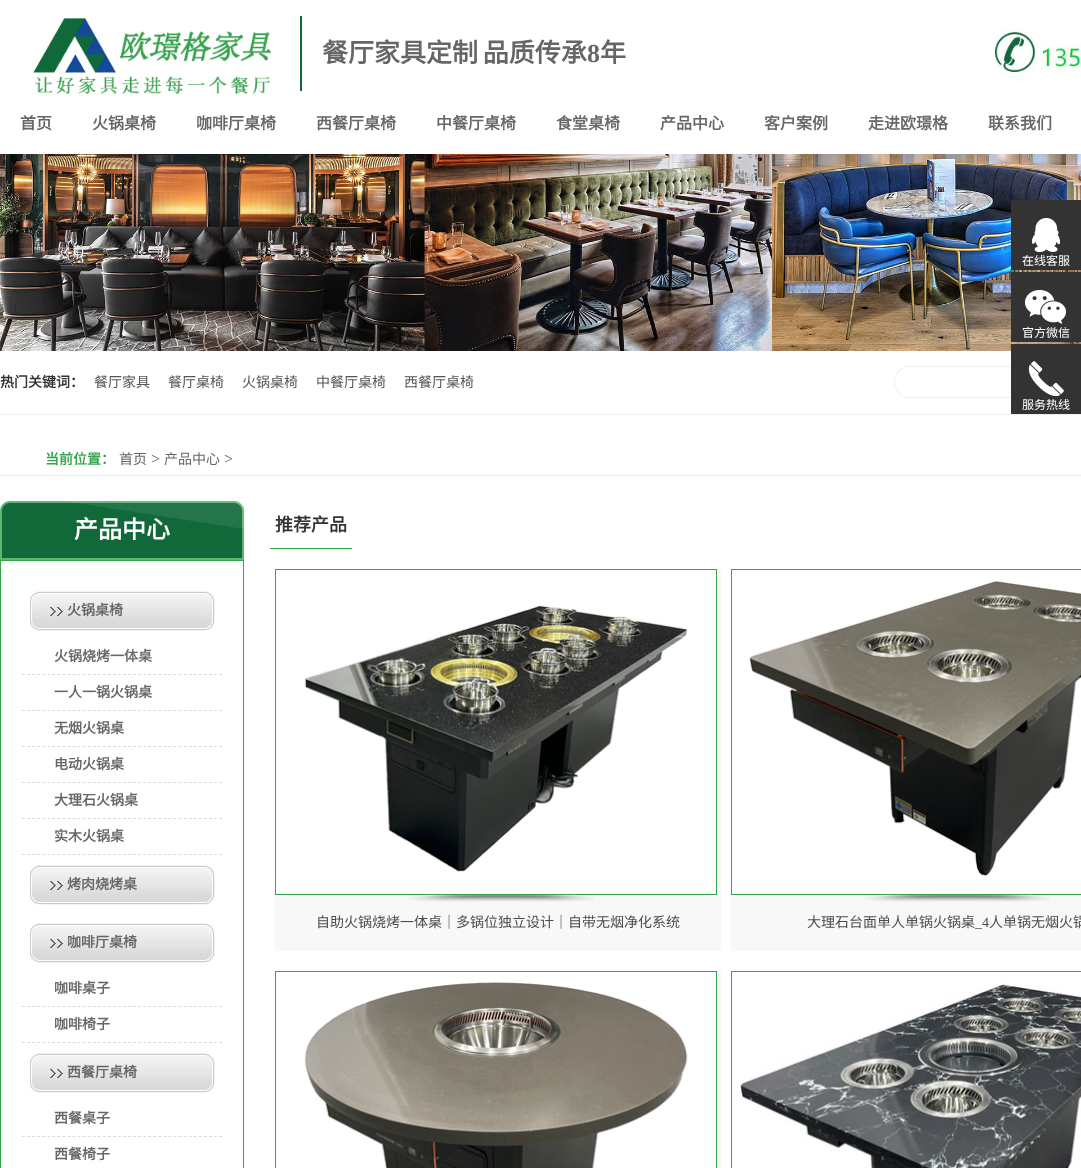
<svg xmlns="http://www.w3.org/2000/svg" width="1081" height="1168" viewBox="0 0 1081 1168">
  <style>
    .t1 { font: bold 26px Noto Sans CJK SC; fill: #666; }
    .t2 { font: bold 26px Liberation Serif; fill: #666; }
    .t3 { font: bold 16px Noto Sans CJK SC; fill: #666; }
    .t4 { font: bold 14px Noto Sans CJK SC; fill: #333; }
    .t5 { font: 14px Noto Sans CJK SC; fill: #555; }
    .t6 { font: 12px Noto Sans CJK SC; fill: #fff; }
    .t7 { font: bold 14px Noto Sans CJK SC; fill: #36a44e; }
    .t8 { font: 14px Noto Sans CJK SC; fill: #666; }
    .t9 { font: 16px Liberation Serif; fill: #666; }
    .t10 { font: bold 24px Noto Sans CJK SC; fill: #fff; }
    .t11 { font: bold 14px Noto Sans CJK SC; fill: #666; }
    .t12 { font: bold 18px Noto Sans CJK SC; fill: #333; }
    .t13 { font: 14px Noto Sans CJK SC; fill: #4c4c4c; }
    .t14 { font: 14px Liberation Serif; fill: #4c4c4c; }
  </style>
  <rect width="100%" height="100%" fill="#fff"/>
  <image x="33" y="18" width="238" height="77" href="images/1.png"/>
  <rect x="300" y="16" width="2" height="75" fill="#11693a"/>
  <text x="322" y="62" word-spacing="-1" class="t1">餐厅家具定制 品质传承</text>
  <text x="587" y="62" class="t2">8</text>
  <text x="600" y="62" class="t1">年</text>
  <image x="995" y="30" width="86" height="46" href="images/2.png"/>
  <text x="20" y="129" class="t3">首页</text>
  <text x="92" y="129" class="t3">火锅桌椅</text>
  <text x="196" y="129" class="t3">咖啡厅桌椅</text>
  <text x="316" y="129" class="t3">西餐厅桌椅</text>
  <text x="436" y="129" class="t3">中餐厅桌椅</text>
  <text x="556" y="129" class="t3">食堂桌椅</text>
  <text x="660" y="129" class="t3">产品中心</text>
  <text x="764" y="129" class="t3">客户案例</text>
  <text x="868" y="129" class="t3">走进欧璟格</text>
  <text x="988" y="129" class="t3">联系我们</text>
  <image x="0" y="154" width="1081" height="197" href="images/3.png"/>
  <rect x="0" y="414" width="1081" height="1" fill="#eee"/>
  <text x="0" y="387" class="t4">热门关键词：</text>
  <text x="94" y="387" class="t5">餐厅家具</text>
  <text x="168" y="387" class="t5">餐厅桌椅</text>
  <text x="242" y="387" class="t5">火锅桌椅</text>
  <text x="316" y="387" class="t5">中餐厅桌椅</text>
  <text x="404" y="387" class="t5">西餐厅桌椅</text>
  <image x="894" y="366" width="117" height="32" href="images/4.png"/>
  <rect x="1011" y="200" width="70" height="70" fill="#333"/>
  <image x="1032" y="218" width="28" height="34" href="images/5.png"/>
  <text x="1022" y="265" class="t6">在线客服</text>
  <rect x="1011" y="272" width="70" height="70" fill="#333"/>
  <image x="1025" y="290" width="41" height="34" href="images/6.png"/>
  <text x="1022" y="337" class="t6">官方微信</text>
  <rect x="1011" y="344" width="70" height="70" fill="#333"/>
  <image x="1028" y="361" width="36" height="36" href="images/7.png"/>
  <text x="1022" y="409" class="t6">服务热线</text>
  <rect x="0" y="475" width="1081" height="1" fill="#ececec"/>
  <text x="45" y="464" class="t7">当前位置：</text>
  <text x="119" y="464" class="t8">首页</text>
  <text x="151" y="464" class="t9">&gt;</text>
  <text x="164" y="464" class="t8">产品中心</text>
  <text x="224" y="464" class="t9">&gt;</text>
  <image x="0" y="501" width="244" height="59" href="images/8.png"/>
  <text x="74" y="538" class="t10">产品中心</text>
  <rect x="0.5" y="560.5" width="243" height="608" fill="none" stroke="#36a44e"/>
  <image x="30" y="591" width="185" height="40" href="images/9.png"/>
  <text x="67" y="615" class="t11">火锅桌椅</text>
  <path d="M22 674.5H222" fill="none" stroke="#dcdcdc" stroke-dasharray="3 2.05"/>
  <text x="54" y="661" class="t11">火锅烧烤一体桌</text>
  <path d="M22 710.5H222" fill="none" stroke="#dcdcdc" stroke-dasharray="3 2.05"/>
  <text x="54" y="697" class="t11">一人一锅火锅桌</text>
  <path d="M22 746.5H222" fill="none" stroke="#dcdcdc" stroke-dasharray="3 2.05"/>
  <text x="54" y="733" class="t11">无烟火锅桌</text>
  <path d="M22 782.5H222" fill="none" stroke="#dcdcdc" stroke-dasharray="3 2.05"/>
  <text x="54" y="769" class="t11">电动火锅桌</text>
  <path d="M22 818.5H222" fill="none" stroke="#dcdcdc" stroke-dasharray="3 2.05"/>
  <text x="54" y="805" class="t11">大理石火锅桌</text>
  <path d="M22 854.5H222" fill="none" stroke="#dcdcdc" stroke-dasharray="3 2.05"/>
  <text x="54" y="841" class="t11">实木火锅桌</text>
  <image x="30" y="865" width="185" height="40" href="images/9.png"/>
  <text x="67" y="889" class="t11">烤肉烧烤桌</text>
  <image x="30" y="923" width="185" height="40" href="images/9.png"/>
  <text x="67" y="947" class="t11">咖啡厅桌椅</text>
  <path d="M22 1006.5H222" fill="none" stroke="#dcdcdc" stroke-dasharray="3 2.05"/>
  <text x="54" y="993" class="t11">咖啡桌子</text>
  <path d="M22 1042.5H222" fill="none" stroke="#dcdcdc" stroke-dasharray="3 2.05"/>
  <text x="54" y="1029" class="t11">咖啡椅子</text>
  <image x="30" y="1053" width="185" height="40" href="images/9.png"/>
  <text x="67" y="1077" class="t11">西餐厅桌椅</text>
  <path d="M22 1136.5H222" fill="none" stroke="#dcdcdc" stroke-dasharray="3 2.05"/>
  <text x="54" y="1123" class="t11">西餐桌子</text>
  <text x="54" y="1159" class="t11">西餐椅子</text>
  <rect x="270" y="548" width="82" height="1" fill="#36a44e"/>
  <text x="275" y="531" class="t12">推荐产品</text>
  <rect x="275" y="569" width="446" height="382" fill="#f8f8f8"/>
  <rect x="275.5" y="569.5" width="441" height="325" fill="none" stroke="#36a44e"/>
  <image x="276" y="570" width="440" height="324" href="images/10.png"/>
  <image x="409" y="895" width="186" height="8" href="images/11.png"/>
  <text x="316" y="927" class="t13">自助火锅烧烤一体桌｜多锅位独立设计｜自带无烟净化系统</text>
  <rect x="731" y="895" width="350" height="56" fill="#f8f8f8"/>
  <rect x="731.5" y="569.5" width="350" height="325" fill="none" stroke="#36a44e"/>
  <image x="732" y="570" width="349" height="324" href="images/12.png"/>
  <image x="865" y="895" width="186" height="8" href="images/11.png"/>
  <text x="807" y="927" class="t13">大理石台面单人单锅火锅桌</text>
  <text x="975" y="927" class="t14">_4</text>
  <text x="989" y="927" class="t13">人单锅无烟火锅</text>
  <rect x="717" y="971" width="4" height="197" fill="#f8f8f8"/>
  <rect x="275.5" y="971.5" width="441" height="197" fill="none" stroke="#36a44e"/>
  <image x="276" y="972" width="440" height="196" href="images/13.png"/>
  <rect x="731.5" y="971.5" width="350" height="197" fill="none" stroke="#36a44e"/>
  <image x="732" y="972" width="349" height="196" href="images/14.png"/>
</svg>
